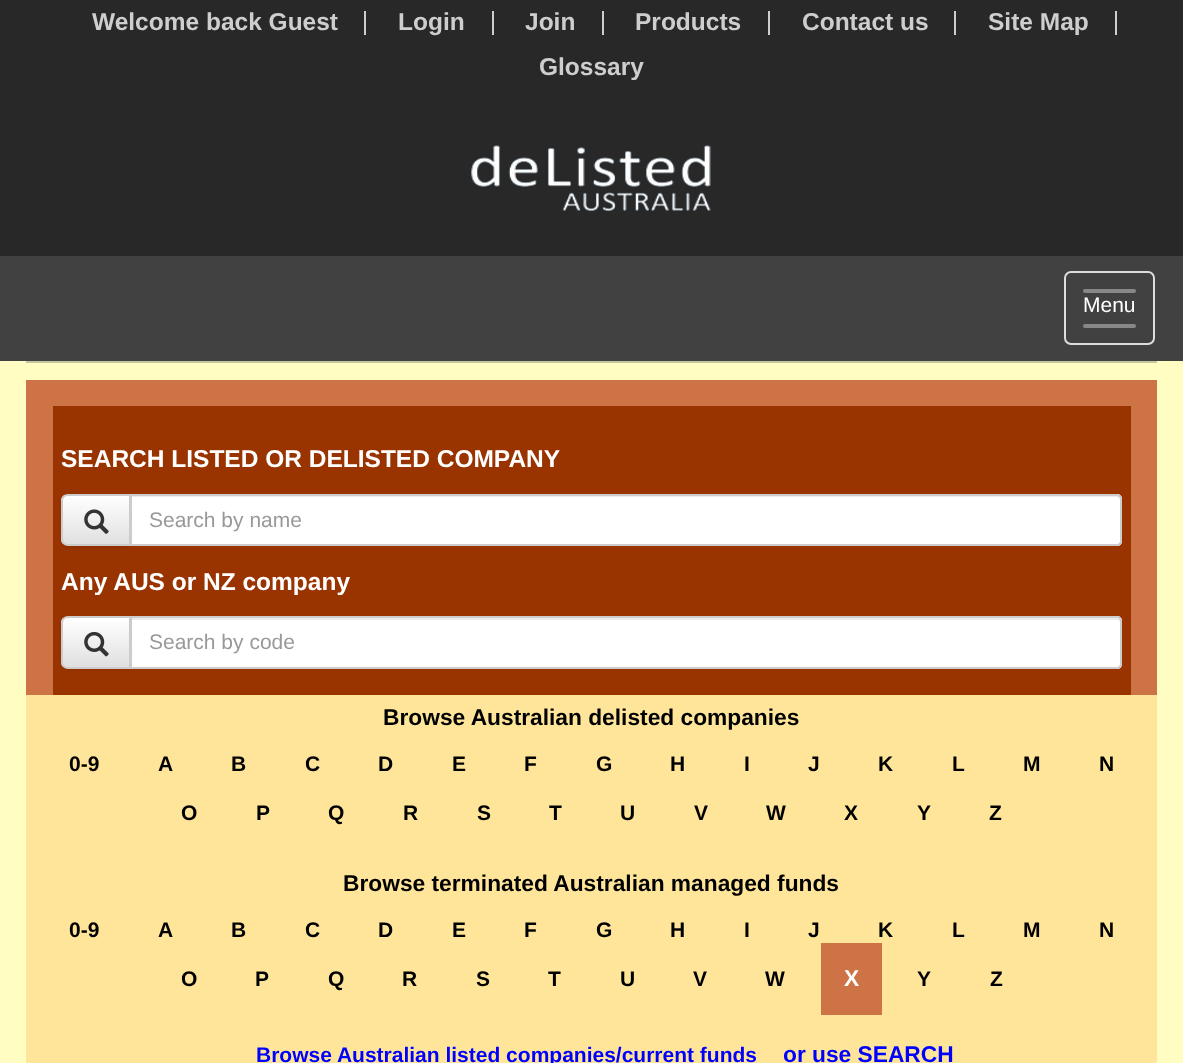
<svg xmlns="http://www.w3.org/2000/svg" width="1183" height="1063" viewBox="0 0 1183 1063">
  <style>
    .t1 { font: bold 24.5px Liberation Sans; fill: #cecece; }
    .t2 { font: 21px Liberation Sans; fill: #fff; }
    .t3 { font: bold 24.5px Liberation Sans; fill: #fff; }
    .t4 { font: 21px Liberation Sans; fill: #999; }
    .t5 { font: bold 22.75px Liberation Sans; fill: #000; }
    .t6 { font: bold 21px Liberation Sans; fill: #000; }
    .t7 { font: bold 22.75px Liberation Sans; fill: #fff; }
    .t8 { font: bold 21px Liberation Sans; fill: #00f; }
    .t9 { font: bold 22.75px Liberation Sans; fill: #00f; }
  </style>
  <defs>
    <clipPath id="clip1"><path d="M68 494H131V546H68C64 546 61 543 61 539V501C61 497 64 494 68 494Z"/></clipPath>
    <linearGradient id="g1" gradientUnits="userSpaceOnUse" x1="96" y1="495" x2="96" y2="544"><stop offset="0" stop-color="#fff"/><stop offset="1" stop-color="#e0e0e0"/></linearGradient>
    <clipPath id="clip2"><path d="M68 616H131V669H68C64 669 61 666 61 662V623C61 619 64 616 68 616Z"/></clipPath>
    <linearGradient id="g2" gradientUnits="userSpaceOnUse" x1="96" y1="618" x2="96" y2="667"><stop offset="0" stop-color="#fff"/><stop offset="1" stop-color="#e0e0e0"/></linearGradient>
  </defs>
  <rect width="100%" height="100%" fill="#282828"/>
  <text x="92" y="30" class="t1">Welcome back Guest</text>
  <rect x="364" y="11" width="2" height="24" fill="#cecece"/>
  <text x="398" y="30" class="t1">Login</text>
  <rect x="492" y="11" width="2" height="24" fill="#cecece"/>
  <text x="525" y="30" class="t1">Join</text>
  <rect x="602" y="11" width="2" height="24" fill="#cecece"/>
  <text x="635" y="30" class="t1">Products</text>
  <rect x="768" y="11" width="2" height="24" fill="#cecece"/>
  <text x="802" y="30" class="t1">Contact us</text>
  <rect x="954" y="11" width="2" height="24" fill="#cecece"/>
  <text x="988" y="30" class="t1">Site Map</text>
  <rect x="1115" y="11" width="2" height="24" fill="#cecece"/>
  <text x="539" y="75" class="t1">Glossary</text>
  <image x="471" y="145" width="240" height="67" href="images/1.png"/>
  <rect x="0" y="256" width="1183" height="105" fill="#414141"/>
  <rect x="1065" y="272" width="89" height="72" rx="6" fill="none" stroke="#ddd" stroke-width="2"/>
  <rect x="1083" y="289" width="53" height="4" rx="2" fill="#888"/>
  <text x="1083" y="312" class="t2">Menu</text>
  <rect x="1083" y="324" width="53" height="4" rx="2" fill="#888"/>
  <rect x="0" y="361" width="1183" height="702" fill="#fffdc2"/>
  <rect x="26" y="361" width="1131" height="2" fill="#c5c5a1"/>
  <rect x="26" y="380" width="1131" height="315" fill="#ce7346"/>
  <rect x="53" y="406" width="1078" height="289" fill="#993400"/>
  <text x="61" y="467" class="t3">SEARCH LISTED OR DELISTED COMPANY</text>
  <rect x="61" y="495" width="70" height="53" rx="7" fill="#00000012" filter="blur(1px)"/>
  <g clip-path="url(#clip1)">
    <rect x="61" y="495" width="68" height="49" fill="url(#g1)"/>
  </g>
  <path d="M68 495H130V545H68C64.5 545 62 542.5 62 539V501C62 497.5 64.5 495 68 495Z" fill="none" stroke="#ccc" stroke-width="2"/>
  <image x="84" y="509" width="25" height="25" href="images/2.png"/>
  <path d="M130 494H1117C1120 494 1122 496 1122 499V541C1122 544 1120 546 1117 546H130Z" fill="#fff"/>
  <path d="M131 497H1116C1118 497 1120 499 1120 500C1120 497 1119 495 1116 495H131Z" fill="#ececec"/>
  <path d="M131 495H1117C1119 495 1121 497 1121 499V541C1121 543 1119 545 1117 545H131Z" fill="none" stroke="#ccc" stroke-width="2"/>
  <text x="149" y="527" class="t4">Search by name</text>
  <text x="61" y="590" class="t3">Any AUS or NZ company</text>
  <rect x="61" y="618" width="70" height="52" rx="7" fill="#00000012" filter="blur(1px)"/>
  <g clip-path="url(#clip2)">
    <rect x="61" y="618" width="68" height="49" fill="url(#g2)"/>
  </g>
  <path d="M68 617H130V668H68C64.5 668 62 665.5 62 662V623C62 619.5 64.5 617 68 617Z" fill="none" stroke="#ccc" stroke-width="2"/>
  <image x="84" y="631" width="25" height="26" href="images/3.png"/>
  <path d="M130 616H1117C1120 616 1122 618 1122 621V664C1122 667 1120 669 1117 669H130Z" fill="#fff"/>
  <path d="M131 620H1116C1118 620 1120 621 1120 623C1120 620 1119 618 1116 618H131Z" fill="#ececec"/>
  <path d="M131 617H1117C1119 617 1121 619 1121 621V664C1121 666 1119 668 1117 668H131Z" fill="none" stroke="#ccc" stroke-width="2"/>
  <text x="149" y="649" class="t4">Search by code</text>
  <rect x="26" y="695" width="1131" height="368" fill="#ffe599"/>
  <text x="383" y="725" class="t5">Browse Australian delisted companies</text>
  <text x="69" y="771" class="t6">0-9</text>
  <text x="158" y="771" class="t6">A</text>
  <text x="231" y="771" class="t6">B</text>
  <text x="305" y="771" class="t6">C</text>
  <text x="378" y="771" class="t6">D</text>
  <text x="452" y="771" class="t6">E</text>
  <text x="524" y="771" class="t6">F</text>
  <text x="596" y="771" class="t6">G</text>
  <text x="670" y="771" class="t6">H</text>
  <text x="744" y="771" class="t6">I</text>
  <text x="808" y="771" class="t6">J</text>
  <text x="878" y="771" class="t6">K</text>
  <text x="952" y="771" class="t6">L</text>
  <text x="1023" y="771" class="t6">M</text>
  <text x="1099" y="771" class="t6">N</text>
  <text x="181" y="820" class="t6">O</text>
  <text x="256" y="820" class="t6">P</text>
  <text x="328" y="820" class="t6">Q</text>
  <text x="403" y="820" class="t6">R</text>
  <text x="477" y="820" class="t6">S</text>
  <text x="549" y="820" class="t6">T</text>
  <text x="620" y="820" class="t6">U</text>
  <text x="694" y="820" class="t6">V</text>
  <text x="766" y="820" class="t6">W</text>
  <text x="844" y="820" class="t6">X</text>
  <text x="917" y="820" class="t6">Y</text>
  <text x="989" y="820" class="t6">Z</text>
  <text x="343" y="891" class="t5">Browse terminated Australian managed funds</text>
  <text x="69" y="937" class="t6">0-9</text>
  <text x="158" y="937" class="t6">A</text>
  <text x="231" y="937" class="t6">B</text>
  <text x="305" y="937" class="t6">C</text>
  <text x="378" y="937" class="t6">D</text>
  <text x="452" y="937" class="t6">E</text>
  <text x="524" y="937" class="t6">F</text>
  <text x="596" y="937" class="t6">G</text>
  <text x="670" y="937" class="t6">H</text>
  <text x="744" y="937" class="t6">I</text>
  <text x="808" y="937" class="t6">J</text>
  <text x="878" y="937" class="t6">K</text>
  <text x="952" y="937" class="t6">L</text>
  <text x="1023" y="937" class="t6">M</text>
  <text x="1099" y="937" class="t6">N</text>
  <text x="181" y="986" class="t6">O</text>
  <text x="255" y="986" class="t6">P</text>
  <text x="328" y="986" class="t6">Q</text>
  <text x="402" y="986" class="t6">R</text>
  <text x="476" y="986" class="t6">S</text>
  <text x="548" y="986" class="t6">T</text>
  <text x="620" y="986" class="t6">U</text>
  <text x="693" y="986" class="t6">V</text>
  <text x="765" y="986" class="t6">W</text>
  <rect x="821" y="943" width="61" height="72" fill="#ce7346"/>
  <text x="844" y="986" class="t7">X</text>
  <text x="917" y="986" class="t6">Y</text>
  <text x="990" y="986" class="t6">Z</text>
  <text x="256" y="1062" class="t8">Browse Australian listed companies/current funds</text>
  <text x="783" y="1062" class="t9">or use SEARCH</text>
</svg>
